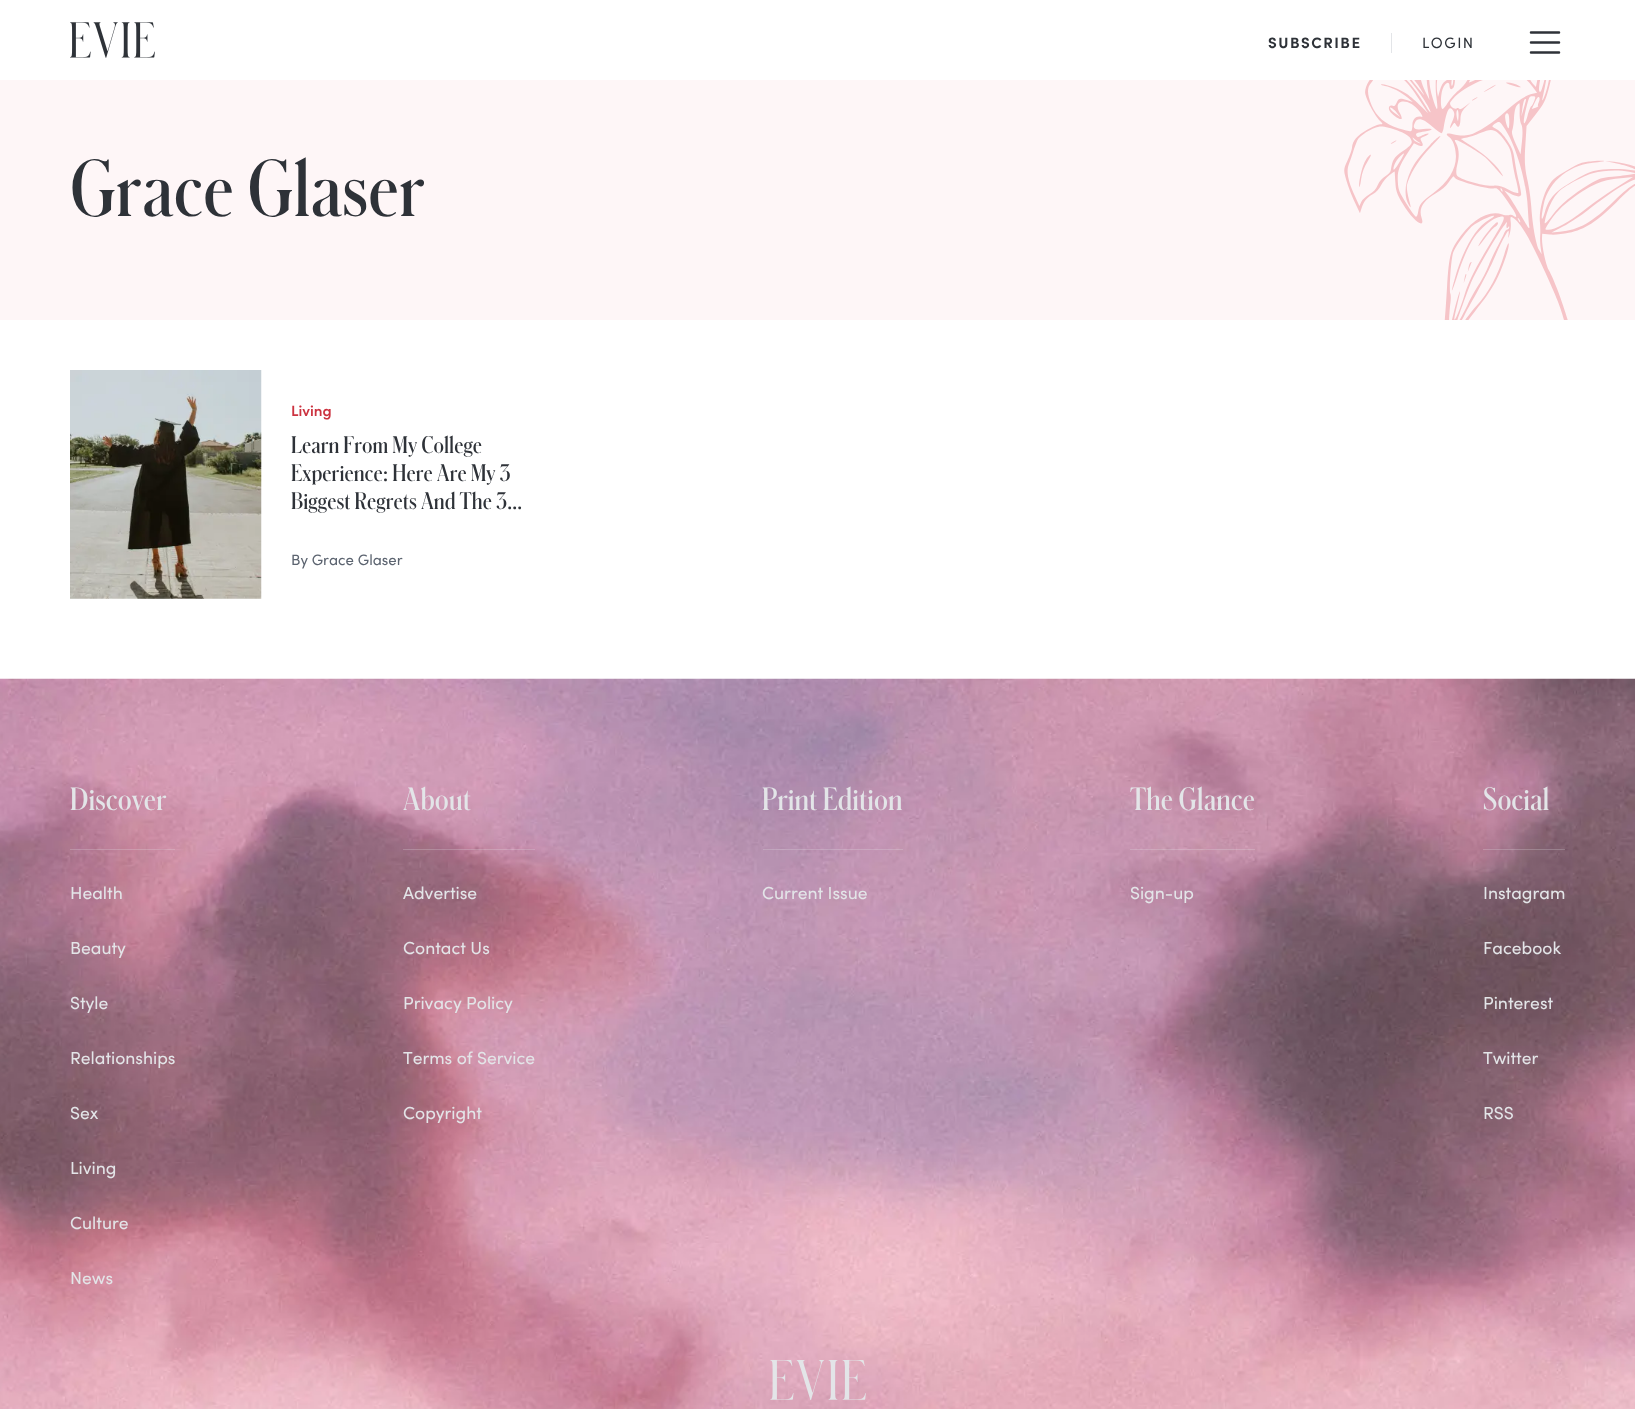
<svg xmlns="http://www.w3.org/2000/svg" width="1635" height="1409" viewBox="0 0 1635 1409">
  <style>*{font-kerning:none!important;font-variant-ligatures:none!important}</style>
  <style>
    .t1 { font: bold 15px Sofia; letter-spacing: 1.5px; fill: #2e3238; }
    .t2 { font: 15px Sofia; letter-spacing: 1.5px; fill: #2e3238; }
    .t3 { font: 75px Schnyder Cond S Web; fill: #2e3238; }
    .t4 { font: 600 15px Sofia; fill: #cc3340; }
    .t5 { font: 22.5px Schnyder Cond S Web; fill: #2e3238; }
    .t6 { font: 15px Sofia; fill: #5c6470; }
    .t7 { font: 30px Schnyder Cond S Web; fill: #e3e5e8; }
    .t8 { font: 17.5px Sofia; fill: #e3e5e8; }
  </style>
  <rect width="100%" height="100%" fill="#fff"/>
  <image x="70" y="22" width="85" height="36" href="images/1.png"/>
  <text x="1268" y="48" class="t1">SUBSCRIBE</text>
  <rect x="1391" y="33" width="1" height="20" fill="#e3e5e8"/>
  <text x="1422" y="48" class="t2">LOGIN</text>
  <path d="M1531 42.5H1559M1531 32.5H1559M1531 52.5H1559" fill="none" stroke="#2e3238" stroke-width="2.5" stroke-linecap="round" stroke-linejoin="round"/>
  <rect x="0" y="80" width="1635" height="240" fill="#fef6f7"/>
  <text x="70" y="216" class="t3">Grace Glaser</text>
  <image x="1344" y="80" width="291" height="240" href="images/2.png"/>
  <image x="70" y="370" width="192" height="229" href="images/3.png"/>
  <text x="291" y="416" class="t4">Living</text>
  <text x="291" y="453" class="t5">Learn From My College</text>
  <text x="291" y="481" class="t5">Experience: Here Are My 3</text>
  <text x="291" y="509" class="t5">Biggest Regrets And The 3…</text>
  <text x="291" y="565" class="t6">By Grace Glaser</text>
  <image x="0" y="678" width="1635" height="731" href="images/4.png"/>
  <text x="70" y="810" class="t7">Discover</text>
  <rect x="70" y="849" width="105" height="1" fill="#e3e5e840"/>
  <text x="70" y="899" class="t8">Health</text>
  <text x="70" y="954" class="t8">Beauty</text>
  <text x="70" y="1009" class="t8">Style</text>
  <text x="70" y="1064" class="t8">Relationships</text>
  <text x="70" y="1119" class="t8">Sex</text>
  <text x="70" y="1174" class="t8">Living</text>
  <text x="70" y="1229" class="t8">Culture</text>
  <text x="70" y="1284" class="t8">News</text>
  <text x="403" y="810" class="t7">About</text>
  <rect x="403" y="849" width="132" height="1" fill="#e3e5e840"/>
  <text x="403" y="899" class="t8">Advertise</text>
  <text x="403" y="954" class="t8">Contact Us</text>
  <text x="403" y="1009" class="t8">Privacy Policy</text>
  <text x="403" y="1064" class="t8">Terms of Service</text>
  <text x="403" y="1119" class="t8">Copyright</text>
  <text x="762" y="810" class="t7">Print Edition</text>
  <rect x="763" y="849" width="140" height="1" fill="#e3e5e840"/>
  <text x="762" y="899" class="t8">Current Issue</text>
  <text x="1130" y="810" class="t7">The Glance</text>
  <rect x="1130" y="849" width="125" height="1" fill="#e3e5e840"/>
  <text x="1130" y="899" class="t8">Sign-up</text>
  <text x="1483" y="810" class="t7">Social</text>
  <rect x="1483" y="849" width="82" height="1" fill="#e3e5e840"/>
  <text x="1483" y="899" class="t8">Instagram</text>
  <text x="1483" y="954" class="t8">Facebook</text>
  <text x="1483" y="1009" class="t8">Pinterest</text>
  <text x="1483" y="1064" class="t8">Twitter</text>
  <text x="1483" y="1119" class="t8">RSS</text>
  <image x="770" y="1360" width="96" height="40" href="images/5.png"/>
</svg>
